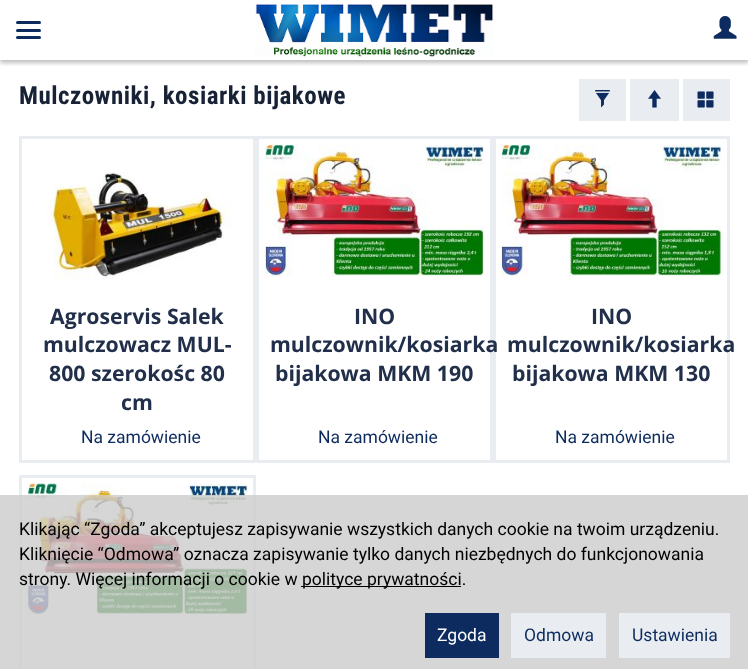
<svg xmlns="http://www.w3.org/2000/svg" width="748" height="669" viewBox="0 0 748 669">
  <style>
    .t1 { font: bold 25px Roboto Condensed; letter-spacing: 0.5px; fill: #172236; }
    .t2 { font: bold 21.25px Open Sans; fill: #212f4a; }
    .t3 { font: 17.5px Roboto; fill: #0d2b5e; }
    .t4 { font: 17.5px Roboto; fill: #000; }
    .t5 { font: 17.5px Roboto; fill: #fff; }
  </style>
  <defs>
    <clipPath id="clip1"><rect x="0" y="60" width="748" height="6"/></clipPath>
  </defs>
  <rect width="100%" height="100%" fill="#fff"/>
  <g clip-path="url(#clip1)">
    <rect x="0" y="3" width="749" height="60" fill="#00000040" filter="blur(2px)"/>
  </g>
  <rect x="16" y="21" width="25" height="3" rx="1.5" fill="#0d2b5e"/>
  <rect x="16" y="29" width="25" height="3" rx="1.5" fill="#0d2b5e"/>
  <rect x="16" y="36" width="25" height="3" rx="1.5" fill="#0d2b5e"/>
  <image x="255" y="4" width="239" height="53" href="images/1.png"/>
  <image x="713" y="16" width="24" height="23" href="images/2.png"/>
  <text x="19" y="104" class="t1">Mulczowniki, kosiarki bijakowe</text>
  <rect x="579" y="79" width="47" height="42" fill="#e9edf1"/>
  <image x="595" y="90" width="15" height="18" href="images/3.png"/>
  <rect x="630" y="79" width="49" height="42" fill="#e9edf1"/>
  <image x="648" y="90" width="13" height="18" href="images/4.png"/>
  <rect x="683" y="79" width="47" height="42" fill="#e9edf1"/>
  <image x="697" y="91" width="17" height="17" href="images/5.png"/>
  <rect x="20.5" y="137.5" width="234" height="324" fill="none" stroke="#e9edf1" stroke-width="3"/>
  <image x="44" y="172" width="187" height="109" href="images/6.png"/>
  <text x="50" y="324" class="t2">Agroservis Salek</text>
  <text x="43" y="352" class="t2">mulczowacz MUL-</text>
  <text x="49" y="381" class="t2">800 szerokośc 80</text>
  <text x="121" y="410" class="t2">cm</text>
  <text x="81" y="443" class="t3">Na zamówienie</text>
  <rect x="257.5" y="137.5" width="234" height="324" fill="none" stroke="#e9edf1" stroke-width="3"/>
  <image x="265" y="145" width="219" height="132" href="images/7.png"/>
  <text x="354" y="324" class="t2">INO</text>
  <rect x="494.5" y="137.5" width="234" height="324" fill="none" stroke="#e9edf1" stroke-width="3"/>
  <text x="270" y="352" class="t2">mulczownik/kosiarka</text>
  <text x="275" y="381" class="t2">bijakowa MKM 190</text>
  <text x="318" y="443" class="t3">Na zamówienie</text>
  <image x="501" y="145" width="221" height="132" href="images/8.png"/>
  <text x="591" y="324" class="t2">INO</text>
  <text x="507" y="352" class="t2">mulczownik/kosiarka</text>
  <text x="512" y="381" class="t2">bijakowa MKM 130</text>
  <text x="555" y="443" class="t3">Na zamówienie</text>
  <rect x="20.5" y="476.5" width="234" height="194" fill="none" stroke="#e9edf1" stroke-width="3"/>
  <image x="27" y="483" width="221" height="132" href="images/9.png"/>
  <rect x="0" y="495" width="748" height="174" fill="#cccccccc"/>
  <text x="19" y="535" class="t4">Klikając “Zgoda” akceptujesz zapisywanie wszystkich danych cookie na twoim urządzeniu.</text>
  <text x="19" y="560" class="t4">Kliknięcie “Odmowa” oznacza zapisywanie tylko danych niezbędnych do funkcjonowania</text>
  <text x="19" y="585" class="t4">strony. Więcej informacji o cookie w</text>
  <rect x="301" y="586" width="160" height="1" fill="#000"/>
  <text x="302" y="585" class="t4">polityce prywatności.</text>
  <rect x="425" y="613" width="74" height="45" fill="#0d2b5e"/>
  <text x="437" y="641" class="t5">Zgoda</text>
  <rect x="511" y="613" width="95" height="45" fill="#e9edf1"/>
  <text x="524" y="641" class="t3">Odmowa</text>
  <rect x="619" y="613" width="111" height="45" fill="#e9edf1"/>
  <text x="632" y="641" class="t3">Ustawienia</text>
</svg>
